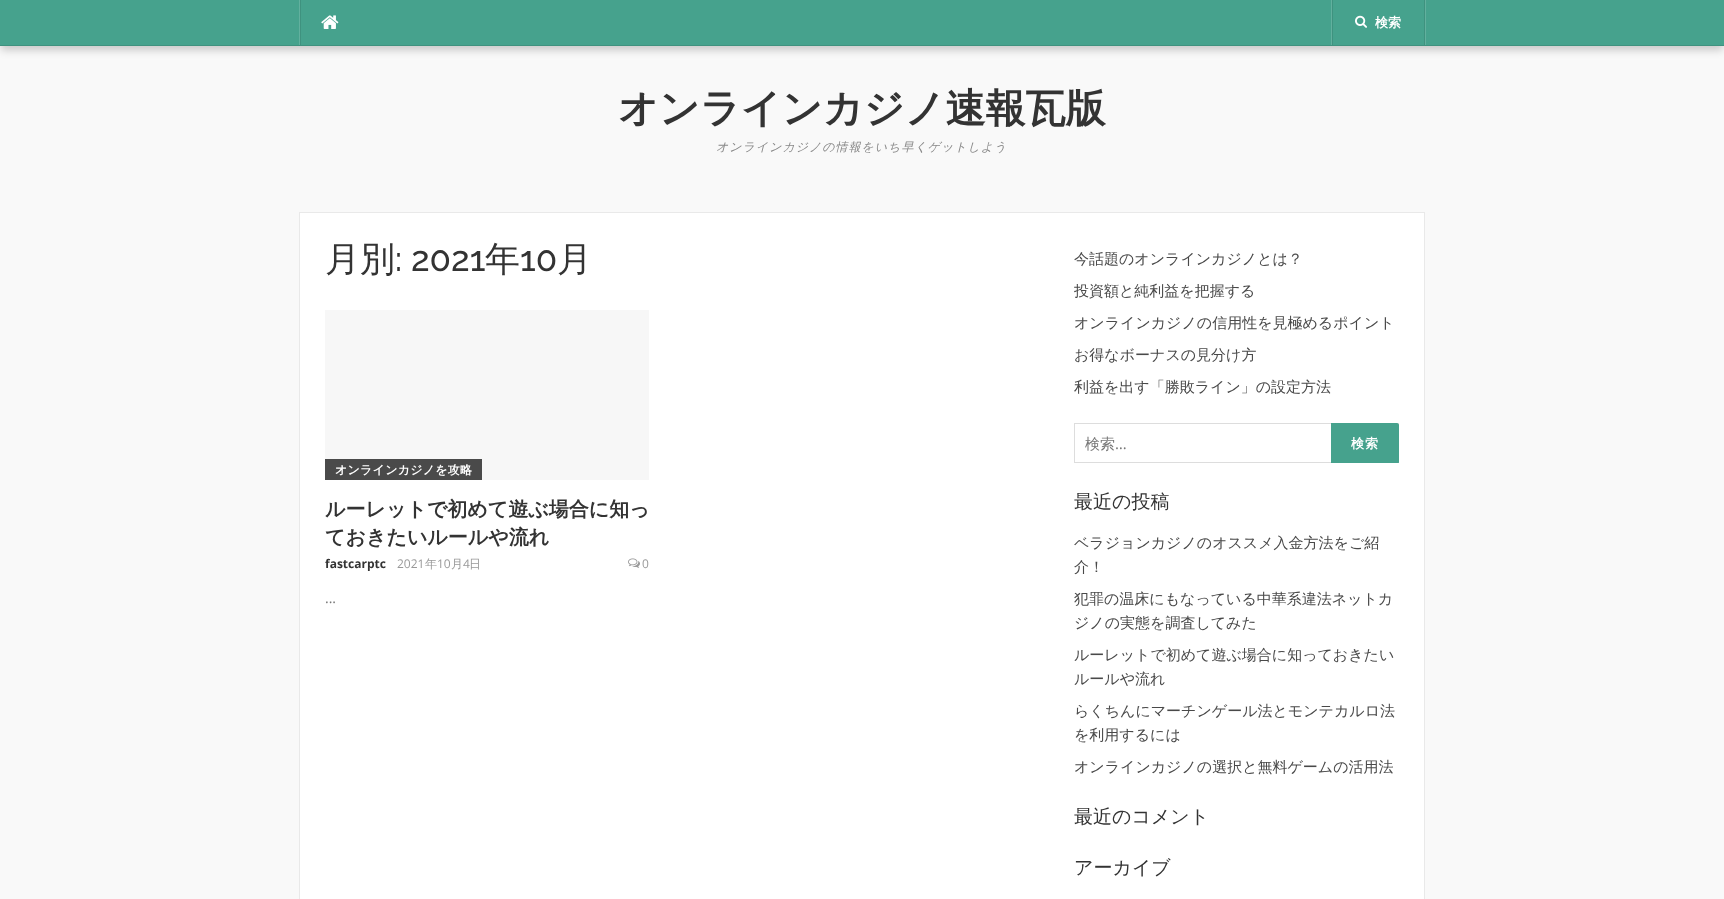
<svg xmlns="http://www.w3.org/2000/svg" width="1724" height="899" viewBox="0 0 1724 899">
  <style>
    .t1 { font: bold 13px WenQuanYi Zen Hei; fill: #fff; }
    .t2 { font: bold 40px WenQuanYi Zen Hei; fill: #333; }
    .t3 { font: italic 500 12px WenQuanYi Zen Hei; letter-spacing: 1px; fill: #888; }
    .t4 { font: 500 35px WenQuanYi Zen Hei; fill: #333; }
    .t5 { font: 500 35px Raleway; fill: #333; }
    .t6 { font: bold 12px WenQuanYi Zen Hei; letter-spacing: 0.25px; fill: #fff; }
    .t7 { font: bold 20px WenQuanYi Zen Hei; fill: #333; }
    .t8 { font: bold 12px Open Sans; fill: #333; }
    .t9 { font: 12px Open Sans; fill: #999; }
    .t10 { font: 500 12px WenQuanYi Zen Hei; fill: #999; }
    .t11 { font: 14px Open Sans; fill: #777; }
    .t12 { font: 500 15px WenQuanYi Zen Hei; fill: #494949; }
    .t13 { font: 500 15px WenQuanYi Zen Hei; fill: #777; }
    .t14 { font: 15px Open Sans; fill: #777; }
    .t15 { font: bold 13px WenQuanYi Zen Hei; letter-spacing: 1px; fill: #fff; }
    .t16 { font: 500 19px WenQuanYi Zen Hei; fill: #333; }
  </style>
  <defs>
    <clipPath id="clip1"><rect x="1074" y="423" width="325" height="40"/></clipPath>
  </defs>
  <rect width="100%" height="100%" fill="#f9f9f9"/>
  <rect x="1" y="6" width="1722" height="44" fill="#00000033" filter="blur(4px)"/>
  <rect x="0" y="0" width="1724" height="45" fill="#46a28d"/>
  <rect x="299" y="0" width="1" height="45" fill="#62b09e"/>
  <rect x="300" y="0" width="1" height="45" fill="#3f927f"/>
  <image x="321" y="15" width="18" height="14" href="images/1.png"/>
  <rect x="1331" y="0" width="1" height="45" fill="#62b09e"/>
  <rect x="1332" y="0" width="1" height="45" fill="#3f927f"/>
  <image x="1355" y="15" width="12" height="13" href="images/2.png"/>
  <text x="1375" y="27" class="t1">検索</text>
  <rect x="1424" y="0" width="1" height="45" fill="#3f927f"/>
  <rect x="1425" y="0" width="1" height="45" fill="#62b09e"/>
  <rect x="0" y="45" width="1724" height="1" fill="#3f927f"/>
  <text x="618" y="122" class="t2">オンラインカジノ速報瓦版</text>
  <text x="716" y="151" class="t3">オンラインカジノの情報をいち早くゲットしよう</text>
  <rect x="299.5" y="212.5" width="1125" height="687" fill="#fff" stroke="#e9e9e9"/>
  <text x="325" y="271" class="t4">月別</text>
  <text x="395" y="271" class="t5">: 2021</text>
  <text x="485" y="271" class="t4">年</text>
  <text x="520" y="271" class="t5">10</text>
  <text x="557" y="271" class="t4">月</text>
  <rect x="325" y="310" width="324" height="170" fill="#f7f7f7"/>
  <rect x="325" y="459" width="157" height="21" fill="#4a4a4a"/>
  <text x="335" y="474" class="t6">オンラインカジノを攻略</text>
  <text x="325" y="516" class="t7">ルーレットで初めて遊ぶ場合に知っ</text>
  <text x="325" y="544" class="t7">ておきたいルールや流れ</text>
  <text x="325" y="568" class="t8">fastcarptc</text>
  <text x="397" y="568" class="t9">2021</text>
  <text x="425" y="568" class="t10">年</text>
  <text x="437" y="568" class="t9">10</text>
  <text x="451" y="568" class="t10">月</text>
  <text x="463" y="568" class="t9">4</text>
  <text x="469" y="568" class="t10">日</text>
  <image x="628" y="558" width="12" height="10" href="images/3.png"/>
  <text x="642" y="568" class="t9">0</text>
  <text x="325" y="603" class="t11">...</text>
  <text x="1074" y="264" class="t12">今話題のオンラインカジノとは？</text>
  <text x="1074" y="296" class="t12">投資額と純利益を把握する</text>
  <text x="1074" y="328" class="t12">オンラインカジノの信用性を見極めるポイント</text>
  <text x="1074" y="360" class="t12">お得なボーナスの見分け方</text>
  <text x="1074" y="392" class="t12">利益を出す「勝敗ライン」の設定方法</text>
  <rect x="1074.5" y="423.5" width="324" height="39" fill="none" stroke="#ddd"/>
  <text x="1085" y="449" class="t13">検索</text>
  <text x="1115" y="449" class="t14">…</text>
  <g clip-path="url(#clip1)">
    <path d="M1331 423H1397C1398 423 1399 424 1399 425V462C1399 463 1398 464 1397 464H1331Z" fill="#46a28d"/>
  </g>
  <text x="1351" y="448" class="t15">検索</text>
  <text x="1074" y="508" class="t16">最近の投稿</text>
  <text x="1074" y="548" class="t12">ベラジョンカジノのオススメ入金方法をご紹</text>
  <text x="1074" y="572" class="t12">介！</text>
  <text x="1074" y="604" class="t12">犯罪の温床にもなっている中華系違法ネットカ</text>
  <text x="1074" y="628" class="t12">ジノの実態を調査してみた</text>
  <text x="1074" y="660" class="t12">ルーレットで初めて遊ぶ場合に知っておきたい</text>
  <text x="1074" y="684" class="t12">ルールや流れ</text>
  <text x="1074" y="716" class="t12">らくちんにマーチンゲール法とモンテカルロ法</text>
  <text x="1074" y="740" class="t12">を利用するには</text>
  <text x="1074" y="772" class="t12">オンラインカジノの選択と無料ゲームの活用法</text>
  <text x="1074" y="823" class="t16">最近のコメント</text>
  <text x="1074" y="874" class="t16">アーカイブ</text>
</svg>
